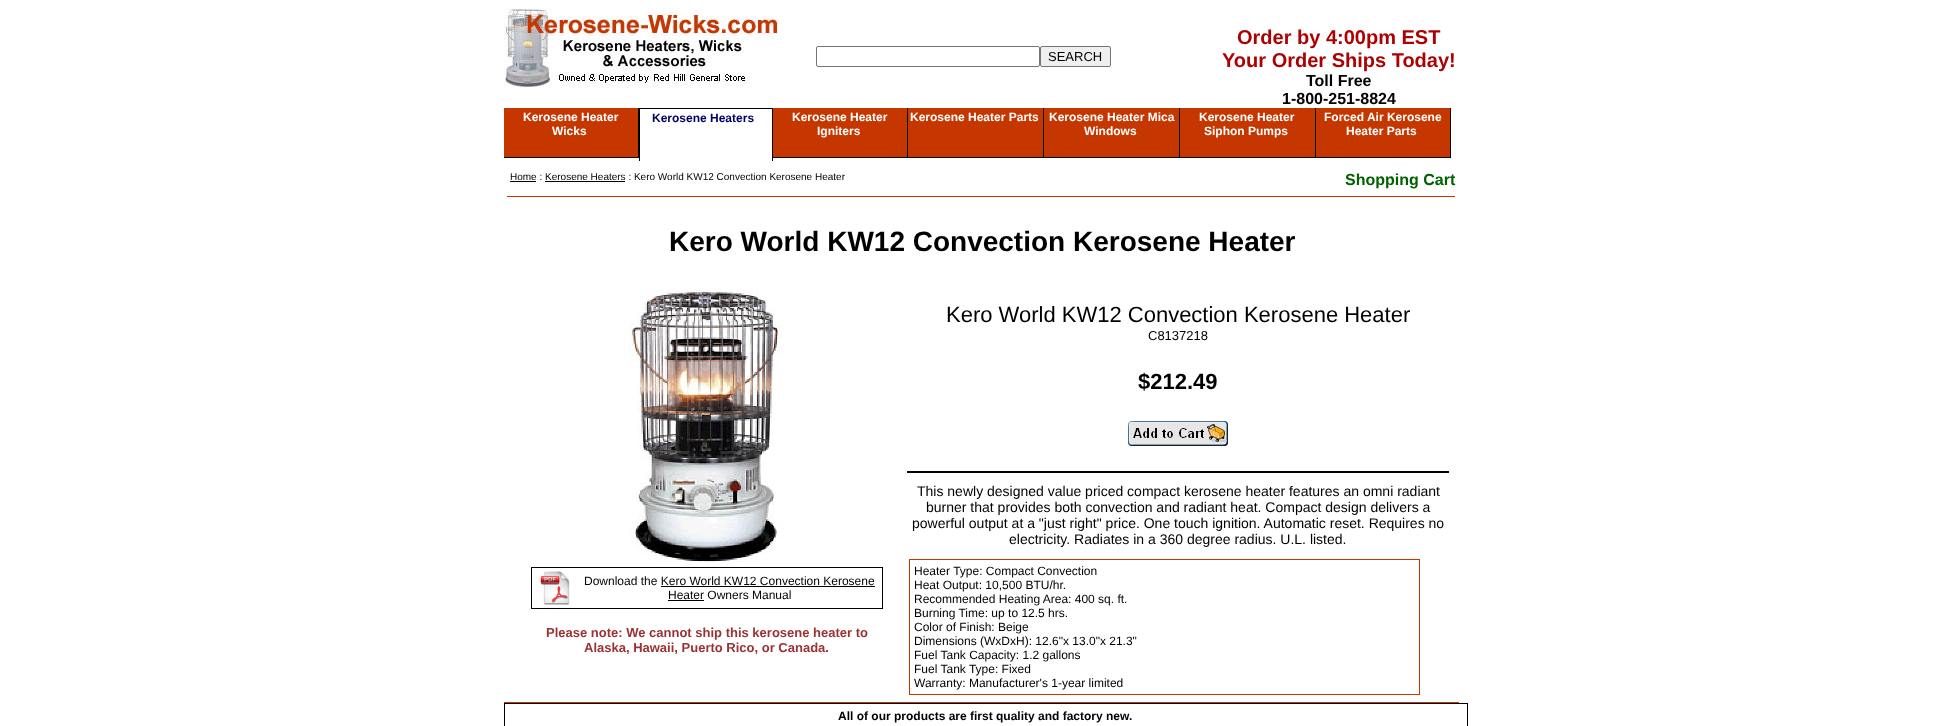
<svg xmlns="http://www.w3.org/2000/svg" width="1959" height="726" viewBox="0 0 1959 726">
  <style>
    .t1 { font: 13px Liberation Sans; fill: #000; }
    .t2 { font: bold 20px Liberation Sans; fill: #ad0000; }
    .t3 { font: bold 16px Liberation Sans; fill: #000; }
    .t4 { font: bold 12px Liberation Sans; fill: #fff; }
    .t5 { font: bold 12px Liberation Sans; fill: #000164; }
    .t6 { font: 10px Liberation Sans; fill: #000; }
    .t7 { font: bold 16px Liberation Sans; fill: #006100; }
    .t8 { font: bold 28px Liberation Sans; fill: #000; }
    .t9 { font: 12px Liberation Sans; fill: #000; }
    .t10 { font: bold 13px Liberation Sans; fill: #933; }
    .t11 { font: 22px Liberation Sans; fill: #000; }
    .t12 { font: bold 22px Liberation Sans; fill: #000; }
    .t13 { font: 14px Liberation Sans; fill: #000; }
    .t14 { font: bold 12px Liberation Sans; fill: #000; }
  </style>
  <rect width="100%" height="100%" fill="#fff"/>
  <image x="504" y="8" width="278" height="80" href="images/1.png"/>
  <rect x="816.5" y="46.5" width="223" height="20" rx="1.5" fill="none" stroke="#767676"/>
  <rect x="1040.5" y="46.5" width="70" height="20" rx="1.5" fill="#efefef" stroke="#767676"/>
  <text x="1048" y="61" class="t1">SEARCH</text>
  <text x="1237" y="44" class="t2">Order by 4:00pm EST</text>
  <text x="1222" y="67" class="t2">Your Order Ships Today!</text>
  <text x="1306" y="86" class="t3">Toll Free</text>
  <text x="1282" y="104" class="t3">1-800-251-8824</text>
  <rect x="504" y="108" width="134" height="49" fill="#c63700"/>
  <rect x="638" y="108" width="1" height="50" fill="#000"/>
  <rect x="504" y="157" width="135" height="1" fill="#000"/>
  <text x="523" y="121" class="t4">Kerosene Heater</text>
  <text x="552" y="135" class="t4">Wicks</text>
  <rect x="639" y="108" width="134" height="1" fill="#000"/>
  <rect x="772" y="108" width="1" height="53" fill="#000"/>
  <rect x="639" y="108" width="1" height="53" fill="#000"/>
  <text x="652" y="122" class="t5">Kerosene Heaters</text>
  <rect x="773" y="108" width="134" height="49" fill="#c63700"/>
  <rect x="907" y="108" width="1" height="50" fill="#000"/>
  <rect x="773" y="157" width="135" height="1" fill="#000"/>
  <text x="792" y="121" class="t4">Kerosene Heater</text>
  <text x="817" y="135" class="t4">Igniters</text>
  <rect x="908" y="108" width="135" height="49" fill="#c63700"/>
  <rect x="1043" y="108" width="1" height="50" fill="#000"/>
  <rect x="908" y="157" width="136" height="1" fill="#000"/>
  <text x="910" y="121" class="t4">Kerosene Heater Parts</text>
  <rect x="1044" y="108" width="135" height="49" fill="#c63700"/>
  <rect x="1179" y="108" width="1" height="50" fill="#000"/>
  <rect x="1044" y="157" width="136" height="1" fill="#000"/>
  <text x="1049" y="121" class="t4">Kerosene Heater Mica</text>
  <text x="1084" y="135" class="t4">Windows</text>
  <rect x="1180" y="108" width="135" height="49" fill="#c63700"/>
  <rect x="1315" y="108" width="1" height="50" fill="#000"/>
  <rect x="1180" y="157" width="136" height="1" fill="#000"/>
  <text x="1199" y="121" class="t4">Kerosene Heater</text>
  <text x="1204" y="135" class="t4">Siphon Pumps</text>
  <rect x="1316" y="108" width="134" height="49" fill="#c63700"/>
  <rect x="1450" y="108" width="1" height="50" fill="#000"/>
  <rect x="1316" y="157" width="135" height="1" fill="#000"/>
  <text x="1324" y="121" class="t4">Forced Air Kerosene</text>
  <text x="1346" y="135" class="t4">Heater Parts</text>
  <rect x="504" y="702" width="955" height="1" fill="#c63700"/>
  <rect x="507" y="196" width="948" height="1" fill="#c63700"/>
  <text x="510" y="180" class="t6">Home : Kerosene Heaters : Kero World KW12 Convection Kerosene Heater</text>
  <rect x="510" y="181" width="26" height="1" fill="#000"/>
  <rect x="545" y="181" width="80" height="1" fill="#000"/>
  <text x="1345" y="185" class="t7">Shopping Cart</text>
  <text x="669" y="251" class="t8">Kero World KW12 Convection Kerosene Heater</text>
  <image x="630" y="290" width="152" height="272" href="images/2.png"/>
  <rect x="531.5" y="567.5" width="351" height="41" fill="none" stroke="#000"/>
  <image x="540" y="571" width="30" height="34" href="images/3.png"/>
  <text x="584" y="585" class="t9">Download the Kero World KW12 Convection Kerosene</text>
  <text x="668" y="599" class="t9">Heater Owners Manual</text>
  <rect x="661" y="586" width="214" height="1" fill="#000"/>
  <rect x="668" y="600" width="36" height="1" fill="#000"/>
  <text x="546" y="637" class="t10">Please note: We cannot ship this kerosene heater to</text>
  <text x="584" y="652" class="t10">Alaska, Hawaii, Puerto Rico, or Canada.</text>
  <rect x="907" y="471" width="542" height="2" fill="#000"/>
  <text x="946" y="322" class="t11">Kero World KW12 Convection Kerosene Heater</text>
  <text x="1148" y="340" class="t1">C8137218</text>
  <text x="1138" y="389" class="t12">$212.49</text>
  <image x="1128" y="421" width="100" height="25" href="images/4.png"/>
  <text x="917" y="496" class="t13">This newly designed value priced compact kerosene heater features an omni radiant</text>
  <text x="926" y="512" class="t13">burner that provides both convection and radiant heat. Compact design delivers a</text>
  <text x="912" y="528" class="t13">powerful output at a "just right" price. One touch ignition. Automatic reset. Requires no</text>
  <text x="1009" y="544" class="t13">electricity. Radiates in a 360 degree radius. U.L. listed.</text>
  <rect x="909.5" y="559.5" width="510" height="135" fill="none" stroke="#c63700"/>
  <text x="914" y="575" class="t9">Heater Type: Compact Convection</text>
  <text x="914" y="589" class="t9">Heat Output: 10,500 BTU/hr.</text>
  <text x="914" y="603" class="t9">Recommended Heating Area: 400 sq. ft.</text>
  <text x="914" y="617" class="t9">Burning Time: up to 12.5 hrs.</text>
  <text x="914" y="631" class="t9">Color of Finish: Beige</text>
  <text x="914" y="645" class="t9">Dimensions (WxDxH): 12.6"x 13.0"x 21.3"</text>
  <text x="914" y="659" class="t9">Fuel Tank Capacity: 1.2 gallons</text>
  <text x="914" y="673" class="t9">Fuel Tank Type: Fixed</text>
  <text x="914" y="687" class="t9">Warranty: Manufacturer's 1-year limited</text>
  <rect x="504.5" y="703.5" width="963" height="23" fill="none" stroke="#000"/>
  <text x="838" y="720" class="t14">All of our products are first quality and factory new.</text>
</svg>
